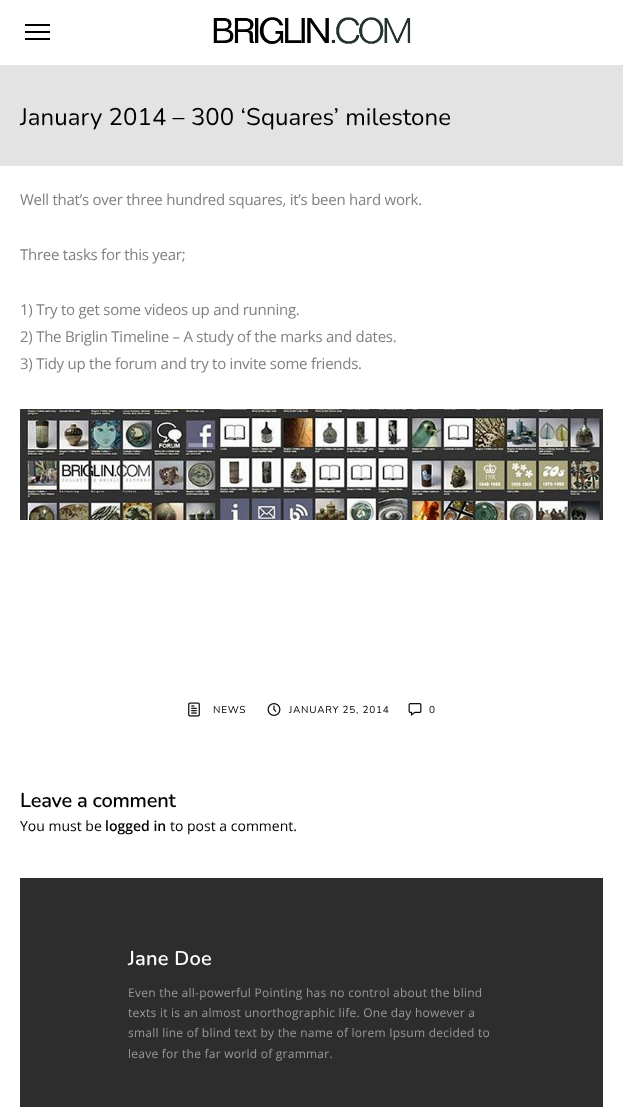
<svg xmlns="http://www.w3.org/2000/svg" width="623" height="1107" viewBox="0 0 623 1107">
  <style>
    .t1 { font: 24px Nunito; letter-spacing: 0.05px; fill: #000; }
    .t2 { font: 15px Open Sans; letter-spacing: -0.25px; fill: #808080; }
    .t3 { font: 10px Nunito; letter-spacing: 0.75px; fill: #000; }
    .t4 { font: 600 20px Nunito; letter-spacing: -0.25px; fill: #000; }
    .t5 { font: 14px Open Sans; fill: #000; }
    .t6 { font: 600 14px Open Sans; fill: #000; }
    .t7 { font: 600 20px Nunito; letter-spacing: 0.25px; fill: #fff; }
    .t8 { font: 12px Open Sans; letter-spacing: 0.25px; fill: #999; }
  </style>
  <rect width="100%" height="100%" fill="#fff"/>
  <rect x="25" y="31" width="25" height="2" fill="#000"/>
  <rect x="25" y="24" width="25" height="2" fill="#000"/>
  <rect x="25" y="38" width="25" height="2" fill="#000"/>
  <image x="213" y="17" width="198" height="27" href="images/1.png"/>
  <rect x="0" y="65" width="623" height="101" fill="#e3e3e3"/>
  <text x="20" y="125" class="t1">January 2014 – 300 ‘Squares’ milestone</text>
  <text x="20" y="205" class="t2">Well that’s over three hundred squares, it’s been hard work.</text>
  <text x="20" y="260" class="t2">Three tasks for this year;</text>
  <text x="20" y="315" class="t2">1) Try to get some videos up and running.</text>
  <text x="20" y="342" class="t2">2) The Briglin Timeline – A study of the marks and dates.</text>
  <text x="20" y="369" class="t2">3) Tidy up the forum and try to invite some friends.</text>
  <image x="20" y="409" width="583" height="111" href="images/2.png"/>
  <image x="188" y="702" width="12" height="15" href="images/3.png"/>
  <text x="213" y="713" class="t3">NEWS</text>
  <image x="267" y="703" width="14" height="13" href="images/4.png"/>
  <text x="289" y="713" class="t3">JANUARY 25, 2014</text>
  <image x="408" y="703" width="14" height="13" href="images/5.png"/>
  <text x="429" y="713" class="t3">0</text>
  <text x="20" y="807" class="t4">Leave a comment</text>
  <text x="20" y="831" class="t5">You must be</text>
  <text x="105" y="831" class="t6">logged in</text>
  <text x="170" y="831" class="t5">to post a comment.</text>
  <rect x="20" y="878" width="583" height="229" fill="#2d2d2d"/>
  <text x="128" y="965" class="t7">Jane Doe</text>
  <text x="128" y="997" class="t8">Even the all-powerful Pointing has no control about the blind</text>
  <text x="128" y="1017" class="t8">texts it is an almost unorthographic life. One day however a</text>
  <text x="128" y="1037" class="t8">small line of blind text by the name of lorem Ipsum decided to</text>
  <text x="128" y="1058" class="t8">leave for the far world of grammar.</text>
</svg>
